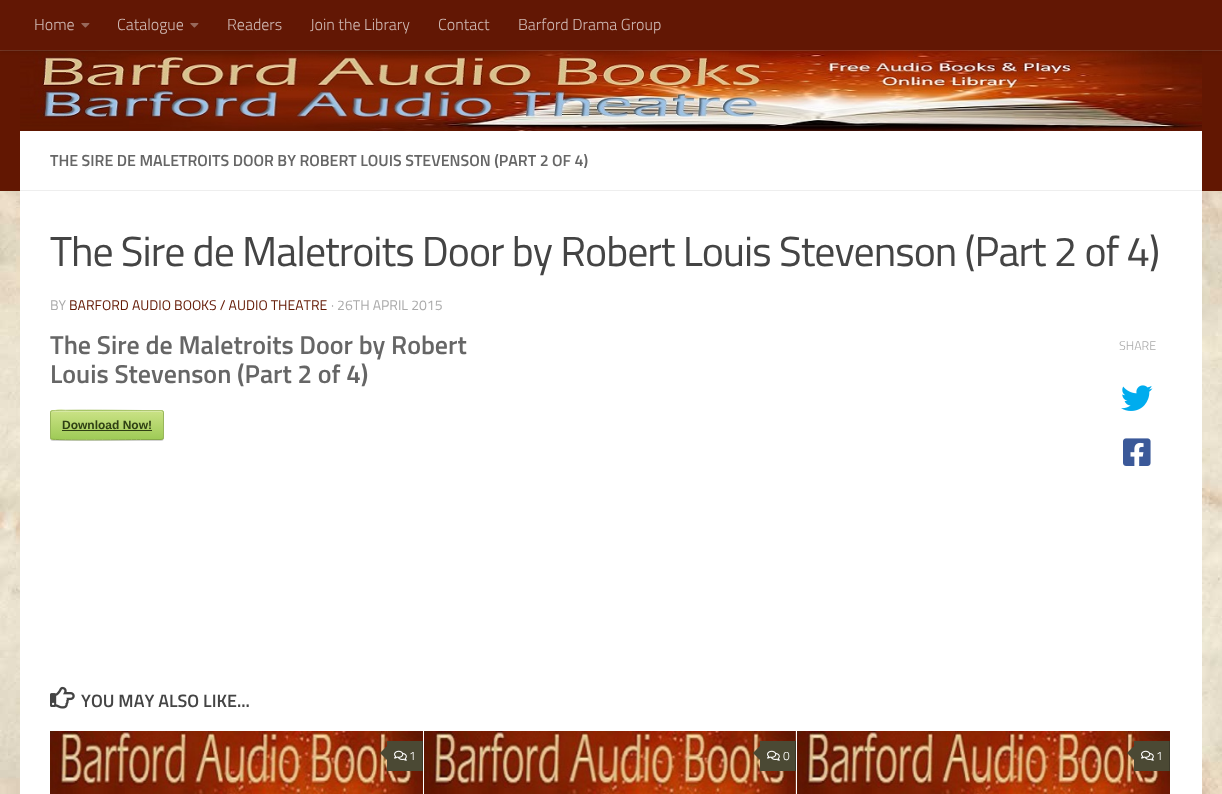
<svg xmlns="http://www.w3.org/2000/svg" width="1222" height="794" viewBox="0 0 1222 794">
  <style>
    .t1 { font: 300 16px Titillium; fill: #d0b9b4; }
    .t2 { font: 600 16px Titillium; fill: #666; }
    .t3 { font: 41.9px Titillium; letter-spacing: -1px; fill: #444; }
    .t4 { font: 14px Titillium; fill: #aaa; }
    .t5 { font: 14px Titillium; fill: #621702; }
    .t6 { font: 600 26px Titillium; fill: #666; }
    .t7 { font: bold 12px Liberation Sans; fill: #2f4014; }
    .t8 { font: 300 12.5px Titillium; fill: #aaa; }
    .t9 { font: 600 18px Titillium; fill: #444; }
    .t10 { font: 300 12px Titillium; fill: #fff; }
  </style>
  <defs>
    <clipPath id="clip1"><rect x="50" y="410" width="114" height="30" rx="3"/></clipPath>
    <linearGradient id="g1" gradientUnits="userSpaceOnUse" x1="51" y1="383" x2="51" y2="411"><stop offset="0" stop-color="#cae285"/><stop offset="1" stop-color="#9fcb57"/></linearGradient>
    <linearGradient id="g2" gradientUnits="userSpaceOnUse" x1="51" y1="411" x2="51" y2="439"><stop offset="0" stop-color="#cae285"/><stop offset="1" stop-color="#9fcb57"/></linearGradient>
    <linearGradient id="g3" gradientUnits="userSpaceOnUse" x1="51" y1="439" x2="51" y2="467"><stop offset="0" stop-color="#cae285"/><stop offset="1" stop-color="#9fcb57"/></linearGradient>
  </defs>
  <rect width="100%" height="100%" fill="#fff"/>
  <image x="0" y="191" width="1222" height="603" href="images/1.png"/>
  <rect x="0" y="50" width="1222" height="141" fill="#621702"/>
  <image x="20" y="50" width="1182" height="81" href="images/3.png"/>
  <rect x="0" y="50" width="1222" height="1" fill="#ffffff26"/>
  <rect x="0" y="0" width="1222" height="50" fill="#00000033" filter="blur(2.5px)"/>
  <rect x="0" y="0" width="1222" height="50" fill="#621704"/>
  <text x="34" y="30" class="t1">Home</text>
  <image x="81" y="23" width="9" height="5" href="images/2.png"/>
  <text x="117" y="30" class="t1">Catalogue</text>
  <image x="190" y="23" width="9" height="5" href="images/2.png"/>
  <text x="227" y="30" class="t1">Readers</text>
  <text x="310" y="30" class="t1">Join the Library</text>
  <text x="438" y="30" class="t1">Contact</text>
  <text x="518" y="30" class="t1">Barford Drama Group</text>
  <rect x="20" y="131" width="1182" height="663" fill="#fff"/>
  <rect x="20" y="190" width="1182" height="1" fill="#eee"/>
  <text x="50" y="166" class="t2">THE SIRE DE MALETROITS DOOR BY ROBERT LOUIS STEVENSON (PART 2 OF 4)</text>
  <text x="50" y="266" class="t3">The Sire de Maletroits Door by Robert Louis Stevenson (Part 2 of 4)</text>
  <text x="50" y="310" class="t4">BY</text>
  <text x="69" y="310" class="t5">BARFORD AUDIO BOOKS / AUDIO THEATRE</text>
  <text x="331" y="310" class="t4">· 26TH APRIL 2015</text>
  <text x="50" y="354" class="t6">The Sire de Maletroits Door by Robert</text>
  <text x="50" y="383" class="t6">Louis Stevenson (Part 2 of 4)</text>
  <rect x="50" y="411" width="114" height="30" rx="3" fill="#d3d3d3" filter="blur(0.5px)"/>
  <g clip-path="url(#clip1)">
    <rect x="50" y="410" width="114" height="1" fill="url(#g1)"/>
    <rect x="50" y="411" width="114" height="28" fill="url(#g2)"/>
    <rect x="50" y="439" width="114" height="1" fill="url(#g3)"/>
  </g>
  <path d="M53 412H161C162 412 163 413 163 414C163 413 163 411 161 411H71C71 411 51 406 51 414C51 413 52 412 53 412Z" fill="#d7e9a4"/>
  <path d="M51 411H51.5C53.5 409.5 134 410.5 143 410.5H161L163 411" fill="none" stroke="#adc671"/>
  <path d="M163 411C163 411.5 163.5 412.5 163.5 413V437C163.5 437.5 163 438.5 163 439" fill="none" stroke="#98b65b"/>
  <path d="M163 439L161 439.5H143C134 439.5 53.5 440.5 51.5 439H51" fill="none" stroke="#87aa4a"/>
  <path d="M51 439C51 438.5 50.5 437.5 50.5 437V413C50.5 412.5 51 411.5 51 411" fill="none" stroke="#98b65b"/>
  <text x="62" y="429" class="t7">Download Now!</text>
  <rect x="62" y="430" width="90" height="1" fill="#2f4014"/>
  <text x="1119" y="350" class="t8">SHARE</text>
  <image x="1121" y="385" width="32" height="26" href="images/4.png"/>
  <image x="1123" y="438" width="28" height="28" href="images/5.png"/>
  <image x="50" y="686" width="25" height="23" href="images/6.png"/>
  <text x="81" y="707" class="t9">YOU MAY ALSO LIKE...</text>
  <image x="50" y="731" width="373" height="63" href="images/7.png"/>
  <rect x="387" y="741" width="35" height="30" fill="#4b4934"/>
  <rect x="422" y="741" width="1" height="30" fill="#3c3a2a"/>
  <path d="M389 744V762L380 753Z" fill="#4b4934"/>
  <image x="394" y="750" width="13" height="11" href="images/8.png"/>
  <text x="409" y="760" class="t10">1</text>
  <image x="424" y="731" width="372" height="63" href="images/9.png"/>
  <rect x="760" y="741" width="35" height="30" fill="#4b4934"/>
  <rect x="795" y="741" width="1" height="30" fill="#3c3a2a"/>
  <path d="M762 744V762L753 753Z" fill="#4b4934"/>
  <image x="767" y="750" width="13" height="11" href="images/8.png"/>
  <text x="783" y="760" class="t10">0</text>
  <image x="797" y="731" width="373" height="63" href="images/7.png"/>
  <rect x="1134" y="741" width="35" height="30" fill="#4b4934"/>
  <rect x="1169" y="741" width="1" height="30" fill="#3c3a2a"/>
  <path d="M1136 744V762L1127 753Z" fill="#4b4934"/>
  <image x="1141" y="750" width="13" height="11" href="images/8.png"/>
  <text x="1156" y="760" class="t10">1</text>
</svg>
